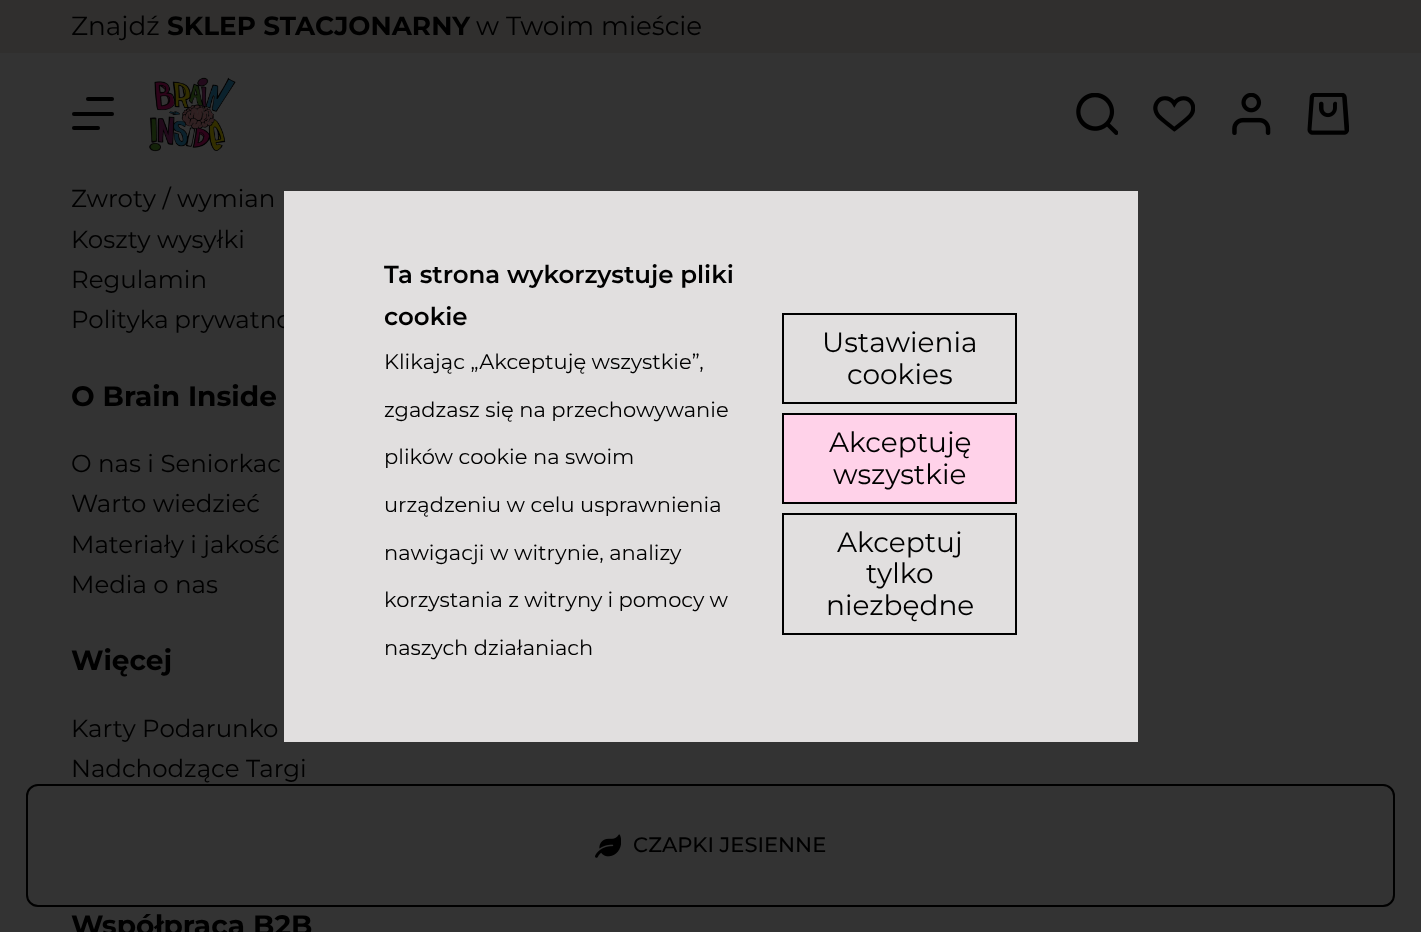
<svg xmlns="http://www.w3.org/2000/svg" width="1421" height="932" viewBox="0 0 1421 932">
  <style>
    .t1 { font: 26.25px Montserrat; fill: #000; }
    .t2 { font: bold 26.25px Montserrat; fill: #000; }
    .t3 { font: 24.5px Montserrat; fill: #000; }
    .t4 { font: bold 28px Montserrat; fill: #000; }
    .t5 { font: 600 24.5px Montserrat; fill: #000; }
    .t6 { font: 21px Montserrat; fill: #000; }
    .t7 { font: 28px Montserrat; fill: #000; }
    .t8 { font: 500 21px Montserrat; fill: #000; }
  </style>
  <rect width="100%" height="100%" fill="#333"/>
  <rect x="0" y="0" width="1421" height="53" fill="#302f2e"/>
  <text x="71" y="35" class="t1">Znajdź</text>
  <text x="167" y="35" class="t2">SKLEP STACJONARNY</text>
  <text x="476" y="35" class="t1">w Twoim mieście</text>
  <rect x="86" y="97" width="28" height="4" rx="2" fill="#000"/>
  <rect x="72" y="112" width="42" height="4" rx="2" fill="#000"/>
  <rect x="72" y="126" width="28" height="4" rx="2" fill="#000"/>
  <image x="149" y="77" width="87" height="75" href="images/1.png"/>
  <image x="1076" y="93" width="42" height="42" href="images/2.png"/>
  <image x="1153" y="96" width="42" height="36" href="images/3.png"/>
  <image x="1232" y="93" width="39" height="42" href="images/4.png"/>
  <image x="1307" y="93" width="42" height="42" href="images/5.png"/>
  <text x="71" y="207" class="t3">Zwroty / wymian</text>
  <text x="71" y="248" class="t3">Koszty wysyłki</text>
  <text x="71" y="288" class="t3">Regulamin</text>
  <text x="71" y="328" word-spacing="-1" class="t3">Polityka prywatno</text>
  <text x="71" y="406" class="t4">O Brain Inside</text>
  <text x="71" y="472" class="t3">O nas i Seniorkac</text>
  <text x="71" y="512" class="t3">Warto wiedzieć</text>
  <text x="71" y="553" class="t3">Materiały i jakość</text>
  <text x="71" y="593" class="t3">Media o nas</text>
  <text x="71" y="670" class="t4">Więcej</text>
  <text x="71" y="737" class="t3">Karty Podarunko</text>
  <text x="71" y="777" class="t3">Nadchodzące Targi</text>
  <text x="71" y="935" class="t4">Współpraca B2B</text>
  <rect x="284" y="191" width="854" height="551" fill="#e1dfdf"/>
  <text x="384" y="283" class="t5">Ta strona wykorzystuje pliki</text>
  <text x="384" y="325" class="t5">cookie</text>
  <text x="384" y="369" class="t6">Klikając „Akceptuję wszystkie”,</text>
  <text x="384" y="417" class="t6">zgadzasz się na przechowywanie</text>
  <text x="384" y="464" class="t6">plików cookie na swoim</text>
  <text x="384" y="512" class="t6">urządzeniu w celu usprawnienia</text>
  <text x="384" y="560" class="t6">nawigacji w witrynie, analizy</text>
  <text x="384" y="607" word-spacing="-0.25" class="t6">korzystania z witryny i pomocy w</text>
  <text x="384" y="655" class="t6">naszych działaniach</text>
  <rect x="783" y="314" width="233" height="89" fill="none" stroke="#000" stroke-width="2"/>
  <text x="822" y="352" class="t7">Ustawienia</text>
  <text x="847" y="384" class="t7">cookies</text>
  <rect x="783" y="414" width="233" height="89" fill="#ffd2e9" stroke="#000" stroke-width="2"/>
  <text x="829" y="452" class="t7">Akceptuję</text>
  <text x="833" y="484" class="t7">wszystkie</text>
  <rect x="783" y="514" width="233" height="120" fill="none" stroke="#000" stroke-width="2"/>
  <text x="837" y="552" class="t7">Akceptuj</text>
  <text x="866" y="583" class="t7">tylko</text>
  <text x="826" y="615" class="t7">niezbędne</text>
  <rect x="27" y="785" width="1367" height="121" rx="11" fill="none" stroke="#000" stroke-width="2"/>
  <image x="595" y="834" width="26" height="24" href="images/6.png"/>
  <text x="633" y="852" class="t8">CZAPKI JESIENNE</text>
</svg>
